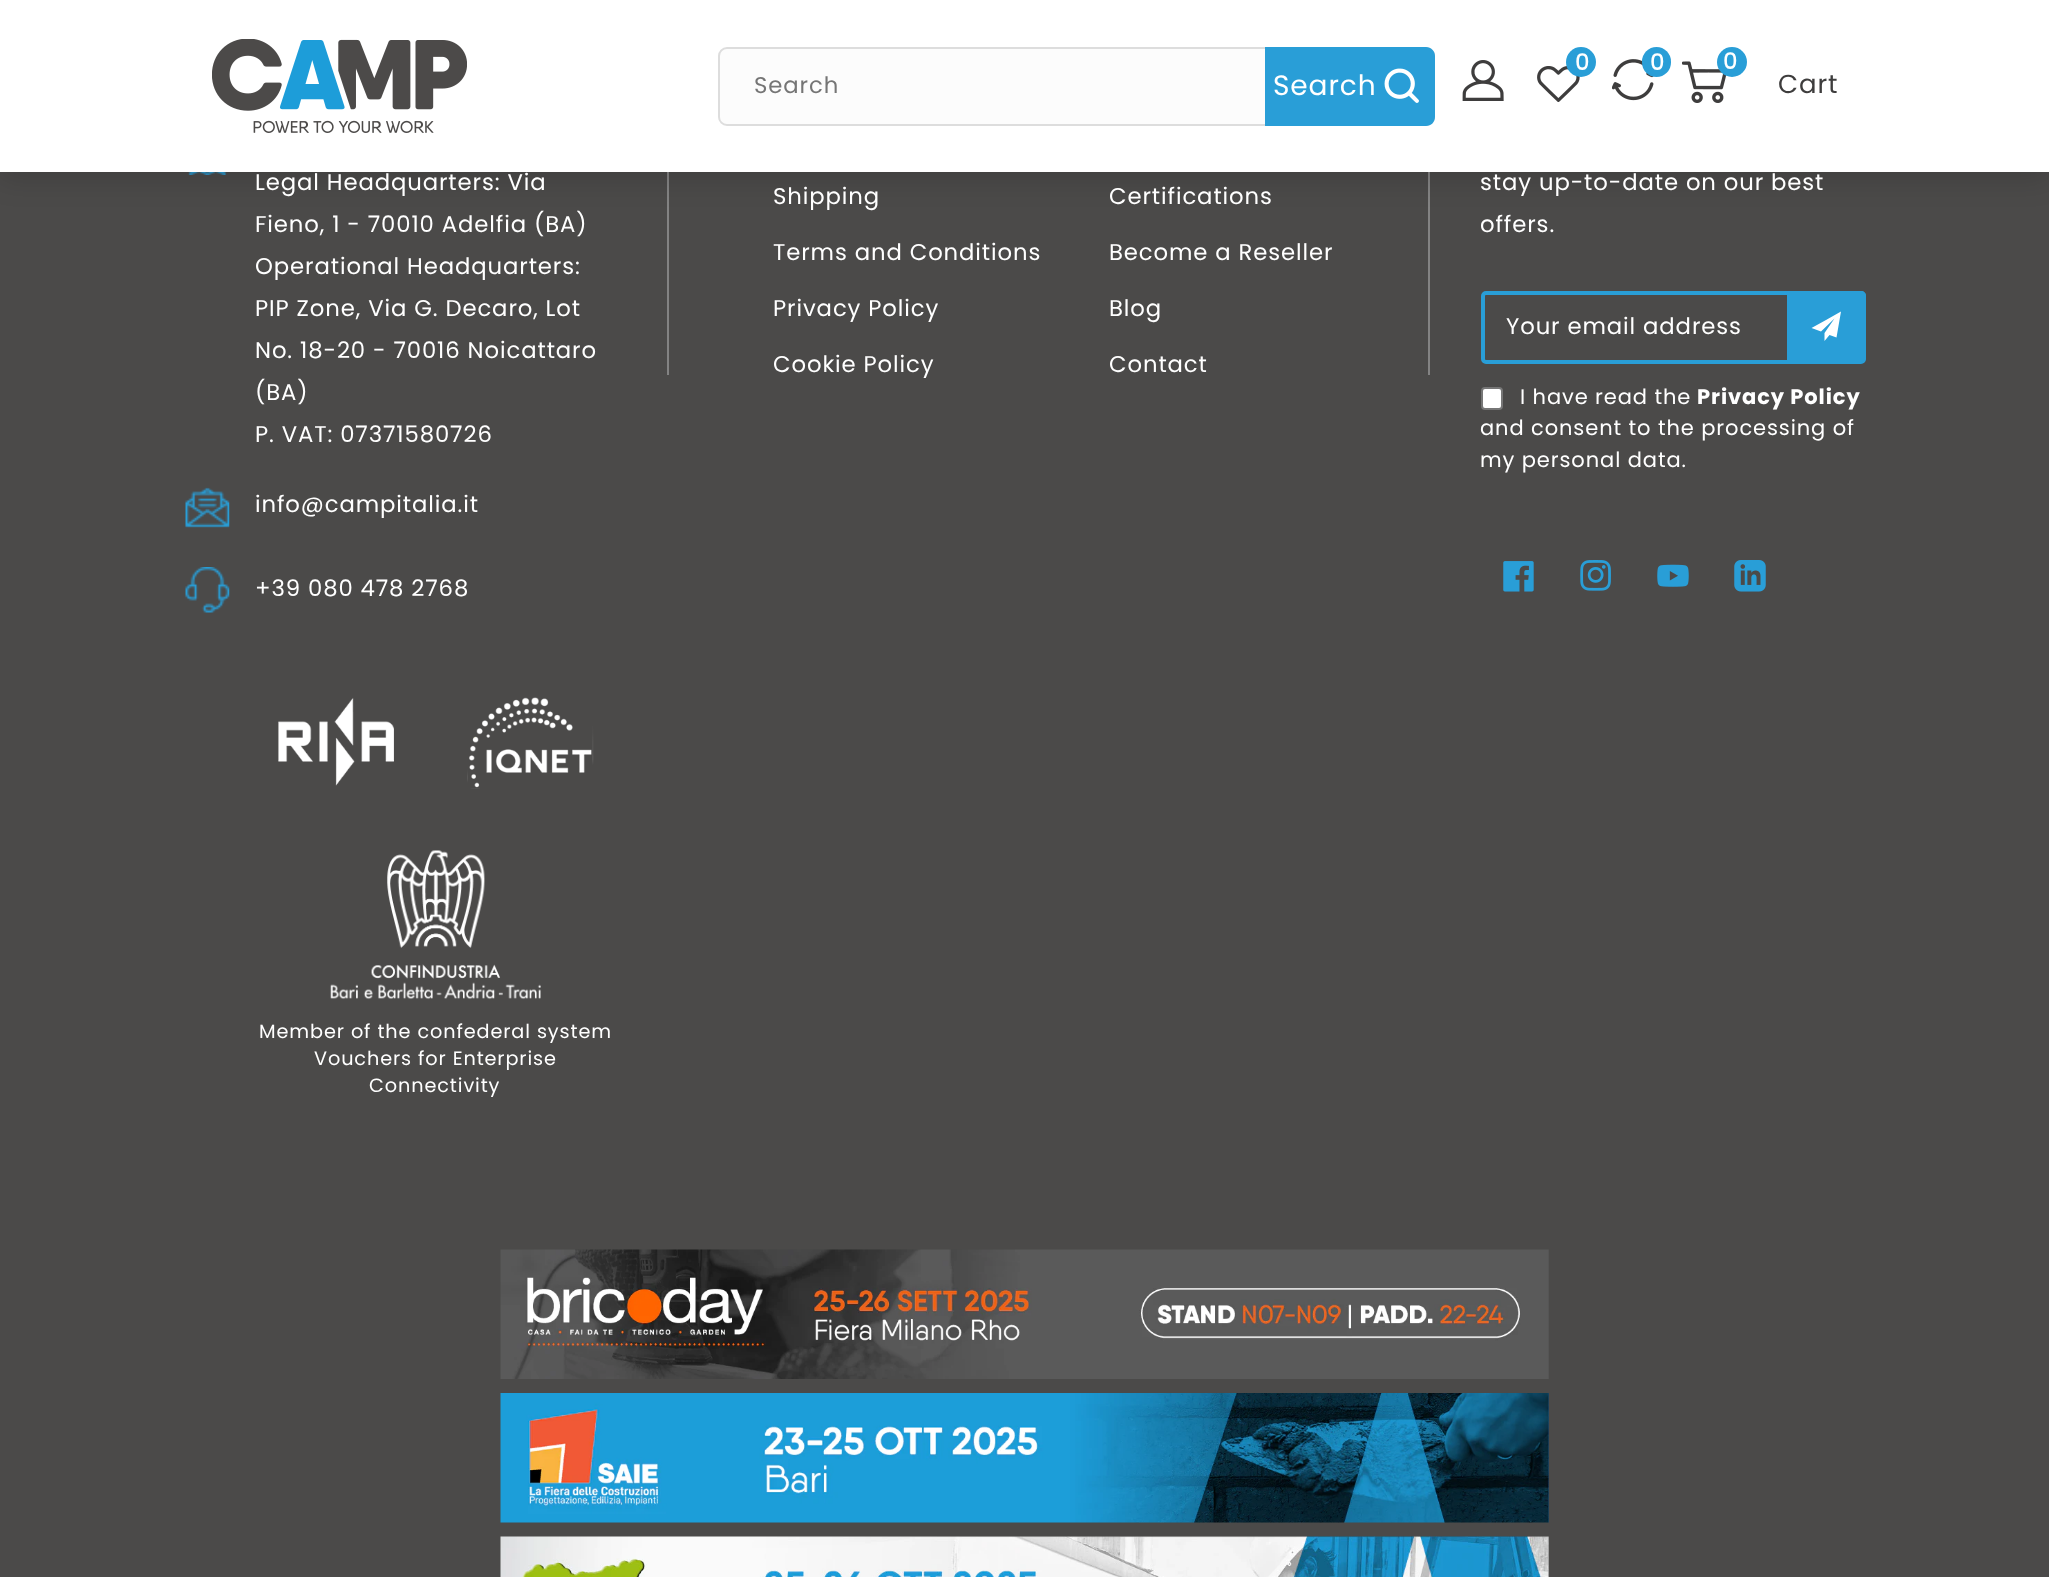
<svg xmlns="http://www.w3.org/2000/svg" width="2049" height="1577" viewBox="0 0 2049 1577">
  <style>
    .t1 { font: 22.75px Poppins; letter-spacing: 0.9px; fill: #757575; }
    .t2 { font: 28px Poppins; letter-spacing: 0.9px; fill: #fff; }
    .t3 { font: 500 22.75px Poppins; letter-spacing: 0.9px; fill: #fff; }
    .t4 { font: 26px Poppins; letter-spacing: 0.9px; fill: #3e3d3d; }
    .t5 { font: 22.75px Poppins; letter-spacing: 0.9px; fill: #fff; }
    .t6 { font: 19.25px Poppins; letter-spacing: 0.9px; fill: #fff; }
    .t7 { font: 21px Poppins; letter-spacing: 0.9px; fill: #fff; }
    .t8 { font: bold 21px Poppins; letter-spacing: 0.9px; fill: #fff; }
  </style>
  <rect width="100%" height="100%" fill="#4b4a49"/>
  <image x="188" y="172" width="39" height="3" href="images/7.png"/>
  <rect x="667" y="172" width="2" height="203" fill="#838383"/>
  <rect x="1428" y="172" width="2" height="203" fill="#838383"/>
  <rect x="0" y="7" width="2049" height="172" fill="#00000026" filter="blur(14px)"/>
  <rect x="0" y="0" width="2049" height="172" fill="#fff"/>
  <image x="212" y="39" width="255" height="94" href="images/1.png"/>
  <rect x="719" y="48" width="715" height="77" rx="8" fill="#fcfcfc" stroke="#ddd" stroke-width="2"/>
  <text x="754" y="93" class="t1">Search</text>
  <path d="M1265 47H1426C1431 47 1435 51 1435 56V117C1435 122 1431 126 1426 126H1265Z" fill="#299ed7"/>
  <text x="1273" y="95" class="t2">Search</text>
  <image x="1384" y="68" width="35" height="35" href="images/2.png"/>
  <image x="1462" y="60" width="42" height="41" href="images/3.png"/>
  <image x="1537" y="66" width="43" height="36" href="images/4.png"/>
  <circle cx="1581" cy="62" r="15" fill="#299ed7"/>
  <text x="1575" y="70" class="t3">0</text>
  <image x="1612" y="59" width="42" height="42" href="images/5.png"/>
  <rect x="1642" y="47" width="29" height="30" rx="14.5" fill="#299ed7"/>
  <text x="1650" y="70" class="t3">0</text>
  <image x="1682" y="61" width="45" height="42" href="images/6.png"/>
  <circle cx="1732" cy="62" r="15" fill="#299ed7"/>
  <text x="1723" y="69" class="t3">0</text>
  <text x="1778" y="93" class="t4">Cart</text>
  <text x="255" y="190" class="t5">Legal Headquarters: Via</text>
  <text x="255" y="232" class="t5">Fieno, 1 - 70010 Adelfia (BA)</text>
  <text x="255" y="274" class="t5">Operational Headquarters:</text>
  <text x="255" y="316" class="t5">PIP Zone, Via G. Decaro, Lot</text>
  <text x="255" y="358" class="t5">No. 18-20 - 70016 Noicattaro</text>
  <text x="255" y="400" class="t5">(BA)</text>
  <text x="255" y="442" class="t5">P. VAT: 07371580726</text>
  <image x="185" y="487" width="45" height="41" href="images/8.png"/>
  <text x="255" y="512" class="t5">info@campitalia.it</text>
  <image x="185" y="567" width="45" height="46" href="images/9.png"/>
  <text x="255" y="596" class="t5">+39 080 478 2768</text>
  <image x="278" y="697" width="316" height="92" href="images/10.png"/>
  <image x="330" y="850" width="211" height="150" href="images/11.png"/>
  <text x="259" y="1038" class="t6">Member of the confederal system</text>
  <text x="314" y="1065" class="t6">Vouchers for Enterprise</text>
  <text x="369" y="1092" class="t6">Connectivity</text>
  <text x="773" y="204" class="t5">Shipping</text>
  <text x="773" y="260" class="t5">Terms and Conditions</text>
  <text x="773" y="316" class="t5">Privacy Policy</text>
  <text x="773" y="372" class="t5">Cookie Policy</text>
  <text x="1109" y="204" class="t5">Certifications</text>
  <text x="1109" y="260" class="t5">Become a Reseller</text>
  <text x="1109" y="316" class="t5">Blog</text>
  <text x="1109" y="372" class="t5">Contact</text>
  <text x="1480" y="190" class="t5">stay up-to-date on our best</text>
  <text x="1480" y="232" class="t5">offers.</text>
  <rect x="1483" y="293" width="381" height="69" rx="3" fill="none" stroke="#299ed7" stroke-width="4"/>
  <text x="1506" y="334" class="t5">Your email address</text>
  <path d="M1787 291H1861C1864 291 1866 293 1866 296V357C1866 360 1864 362 1861 362H1787Z" fill="#299ed7"/>
  <path d="M1826 320L1811.5 328L1821 331.5L1834.5 318.5L1824.5 333V341L1829.5 335L1836.5 337.5L1841 311.5Z" fill="#fff"/>
  <rect x="1482" y="388" width="20" height="21" rx="3" fill="#fff" stroke="#767676" stroke-width="2"/>
  <text x="1520" y="404" class="t7">I have read the</text>
  <text x="1697" y="404" class="t8">Privacy Policy</text>
  <text x="1480" y="435" class="t7">and consent to the processing of</text>
  <text x="1480" y="467" class="t7">my personal data.</text>
  <image x="1503" y="561" width="31" height="31" href="images/12.png"/>
  <image x="1580" y="560" width="31" height="31" href="images/13.png"/>
  <image x="1657" y="564" width="32" height="23" href="images/14.png"/>
  <image x="1734" y="560" width="32" height="32" href="images/15.png"/>
  <image x="500" y="1249" width="1049" height="130" href="images/16.png"/>
  <image x="500" y="1393" width="1049" height="130" href="images/17.png"/>
  <image x="500" y="1536" width="1049" height="41" href="images/18.png"/>
</svg>
